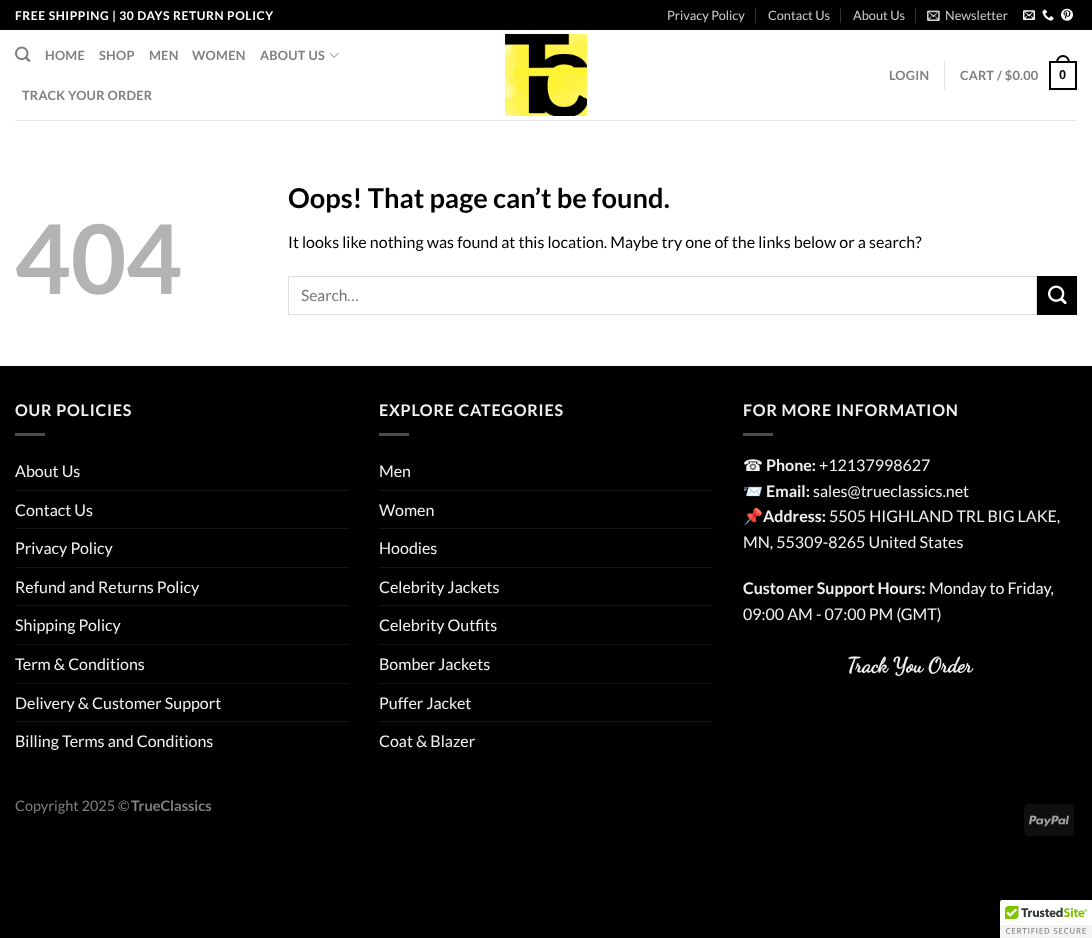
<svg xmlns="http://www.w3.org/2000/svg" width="1092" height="938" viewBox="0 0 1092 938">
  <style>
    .t1 { font: bold 12px Lato; letter-spacing: 0.6px; fill: #fff; }
    .t2 { font: 12.75px Lato; fill: #ccc; }
    .t3 { font: bold 12.75px Lato; letter-spacing: 0.25px; fill: #808080; }
    .t4 { font: bold 12.75px Liberation Sans; letter-spacing: 0.25px; fill: #000; }
    .t5 { font: bold 96px Lato; fill: #b3b3b3; }
    .t6 { font: bold 27.25px Lato; fill: #000; }
    .t7 { font: 16px Lato; fill: #000; }
    .t8 { font: 15.5px Lato; fill: #757575; }
    .t9 { font: bold 16px Lato; letter-spacing: 0.8px; fill: #f1f1f1; }
    .t10 { font: 16px Lato; fill: #f1f1f1; }
    .t11 { font: 16px DejaVu Sans; fill: #f1f1f1; }
    .t12 { font: bold 16px Lato; fill: #f1f1f1; }
    .t13 { font: bold 16px Noto Color Emoji; fill: #f1f1f1; }
    .t14 { font: bold 20.75px Dancing Script; fill: #f1f1f1; }
    .t15 { font: 14.5px Lato; fill: #808080; }
    .t16 { font: bold 14.5px Lato; fill: #808080; }
  </style>
  <rect width="100%" height="100%" fill="#000"/>
  <rect x="0" y="30" width="1092" height="336" fill="#fff"/>
  <text x="15" y="20" class="t1">FREE SHIPPING | 30 DAYS RETURN POLICY</text>
  <text x="667" y="20" class="t2">Privacy Policy</text>
  <rect x="755" y="8" width="1" height="15" fill="#333"/>
  <text x="768" y="20" class="t2">Contact Us</text>
  <rect x="840" y="8" width="1" height="15" fill="#333"/>
  <text x="853" y="20" class="t2">About Us</text>
  <rect x="915" y="8" width="1" height="15" fill="#333"/>
  <image x="927" y="10" width="13" height="11" href="images/1.png"/>
  <text x="945" y="20" class="t2">Newsletter</text>
  <image x="1023" y="10" width="12" height="10" href="images/2.png"/>
  <image x="1042" y="9" width="12" height="12" href="images/3.png"/>
  <image x="1061" y="8" width="12" height="13" href="images/4.png"/>
  <image x="15" y="46" width="16" height="16" href="images/5.png"/>
  <text x="45" y="60" class="t3">HOME</text>
  <text x="99" y="60" class="t3">SHOP</text>
  <text x="149" y="60" class="t3">MEN</text>
  <text x="192" y="60" class="t3">WOMEN</text>
  <text x="260" y="60" class="t3">ABOUT US</text>
  <image x="329" y="52" width="10" height="6" href="images/6.png"/>
  <text x="22" y="100" class="t3">TRACK YOUR ORDER</text>
  <image x="505" y="34" width="82" height="82" href="images/7.png"/>
  <text x="889" y="80" class="t3">LOGIN</text>
  <rect x="944" y="60" width="1" height="30" fill="#e6e6e6"/>
  <text x="960" y="80" class="t3">CART / $0.00</text>
  <rect x="1050" y="62" width="26" height="27" fill="none" stroke="#000" stroke-width="2"/>
  <path d="M1063 55C1067.5 55 1070 59 1070 63H1056C1056 59 1058.5 55 1063 55ZM1063 57C1066.5 57 1068 60 1068 63H1058C1058 60 1059.5 57 1063 57Z" fill="#000" fill-rule="evenodd"/>
  <text x="1059" y="79" class="t4">0</text>
  <rect x="15" y="120" width="1062" height="1" fill="#e6e6e6"/>
  <text x="15" y="294" class="t5">404</text>
  <text x="288" y="208" class="t6">Oops! That page can’t be found.</text>
  <text x="288" y="248" class="t7">It looks like nothing was found at this location. Maybe try one of the links below or a search?</text>
  <rect x="288.5" y="276.5" width="748" height="38" fill="none" stroke="#ddd"/>
  <text x="301" y="301" class="t8">Search…</text>
  <rect x="1037" y="276" width="40" height="39" fill="#000"/>
  <image x="1048" y="285" width="19" height="20" href="images/8.png"/>
  <text x="15" y="416" class="t9">OUR POLICIES</text>
  <rect x="15" y="433" width="30" height="3" fill="#4d4d4d"/>
  <text x="15" y="477" class="t10">About Us</text>
  <rect x="15" y="490" width="334" height="1" fill="#141414"/>
  <text x="15" y="516" class="t10">Contact Us</text>
  <rect x="15" y="528" width="334" height="1" fill="#141414"/>
  <text x="15" y="554" class="t10">Privacy Policy</text>
  <rect x="15" y="567" width="334" height="1" fill="#141414"/>
  <text x="15" y="593" class="t10">Refund and Returns Policy</text>
  <rect x="15" y="605" width="334" height="1" fill="#141414"/>
  <text x="15" y="631" class="t10">Shipping Policy</text>
  <rect x="15" y="644" width="334" height="1" fill="#141414"/>
  <text x="15" y="670" class="t10">Term &amp; Conditions</text>
  <rect x="15" y="683" width="334" height="1" fill="#141414"/>
  <text x="15" y="709" class="t10">Delivery &amp; Customer Support</text>
  <rect x="15" y="721" width="334" height="1" fill="#141414"/>
  <text x="15" y="747" class="t10">Billing Terms and Conditions</text>
  <text x="379" y="416" class="t9">EXPLORE CATEGORIES</text>
  <rect x="379" y="433" width="30" height="3" fill="#4d4d4d"/>
  <text x="379" y="477" class="t10">Men</text>
  <rect x="379" y="490" width="334" height="1" fill="#141414"/>
  <text x="379" y="516" class="t10">Women</text>
  <rect x="379" y="528" width="334" height="1" fill="#141414"/>
  <text x="379" y="554" class="t10">Hoodies</text>
  <rect x="379" y="567" width="334" height="1" fill="#141414"/>
  <text x="379" y="593" class="t10">Celebrity Jackets</text>
  <rect x="379" y="605" width="334" height="1" fill="#141414"/>
  <text x="379" y="631" class="t10">Celebrity Outfits</text>
  <rect x="379" y="644" width="334" height="1" fill="#141414"/>
  <text x="379" y="670" class="t10">Bomber Jackets</text>
  <rect x="379" y="683" width="334" height="1" fill="#141414"/>
  <text x="379" y="709" class="t10">Puffer Jacket</text>
  <rect x="379" y="721" width="334" height="1" fill="#141414"/>
  <text x="379" y="747" class="t10">Coat &amp; Blazer</text>
  <text x="743" y="416" class="t9">FOR MORE INFORMATION</text>
  <rect x="743" y="433" width="30" height="3" fill="#4d4d4d"/>
  <text x="743" y="471" class="t11">☎</text>
  <text x="766" y="471" class="t12">Phone:</text>
  <text x="819" y="471" class="t10">+12137998627</text>
  <text x="743" y="497" class="t13">📨</text>
  <text x="766" y="497" class="t12">Email:</text>
  <text x="813" y="497" class="t10">sales@trueclassics.net</text>
  <text x="743" y="522" class="t13">📌</text>
  <text x="763" y="522" class="t12">Address:</text>
  <text x="829" y="522" class="t10">5505 HIGHLAND TRL BIG LAKE,</text>
  <text x="743" y="548" class="t10">MN, 55309-8265 United States</text>
  <text x="743" y="594" class="t12">Customer Support Hours:</text>
  <text x="929" y="594" class="t10">Monday to Friday,</text>
  <text x="743" y="620" class="t10">09:00 AM - 07:00 PM (GMT)</text>
  <text x="847" y="672" class="t14">Track You Order</text>
  <text x="15" y="811" class="t15">Copyright 2025 ©</text>
  <text x="131" y="811" class="t16">TrueClassics</text>
  <rect x="1024" y="804" width="50" height="32" rx="5" fill="#0f0f0f"/>
  <image x="1029" y="815" width="40" height="12" href="images/9.png"/>
  <path d="M1002 900H1092V938H1000V902C1000 901 1001 900 1002 900Z" fill="#fff"/>
  <image x="1000" y="900" width="92" height="38" href="images/10.png"/>
</svg>
